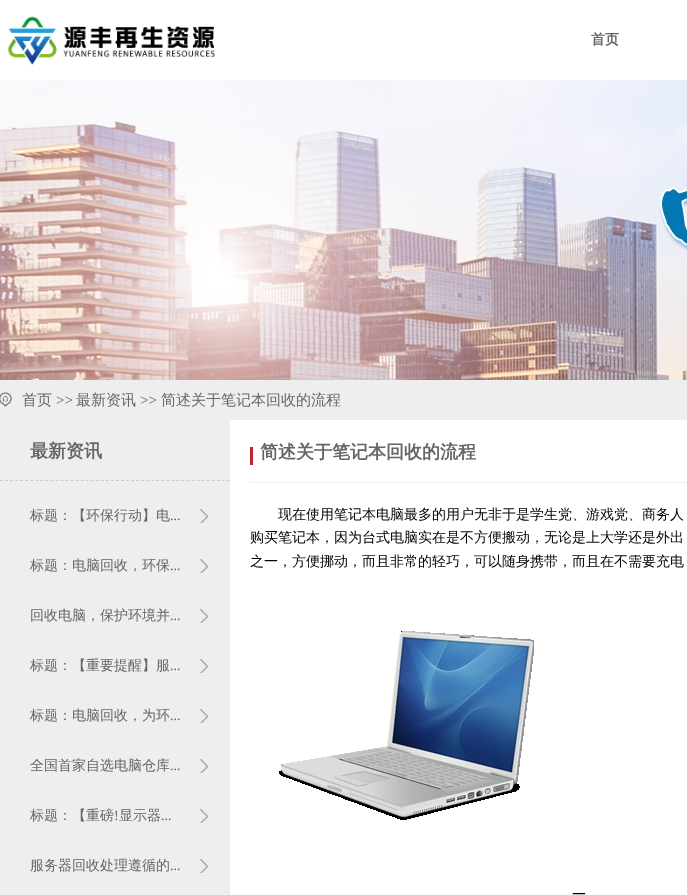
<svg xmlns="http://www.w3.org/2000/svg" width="687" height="895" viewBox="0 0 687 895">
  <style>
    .t1 { font: bold 14px WenQuanYi Zen Hei; fill: #666; }
    .t2 { font: 500 15px WenQuanYi Zen Hei; fill: #666; }
    .t3 { font: 15px Liberation Serif; fill: #666; }
    .t4 { font: bold 18px WenQuanYi Zen Hei; fill: #666; }
    .t5 { font: 500 14px WenQuanYi Zen Hei; fill: #666; }
    .t6 { font: 14px Liberation Serif; fill: #666; }
    .t7 { font: 500 14px WenQuanYi Zen Hei; fill: #000; }
  </style>
  <rect width="100%" height="100%" fill="#fff"/>
  <image x="7" y="16" width="208" height="49" href="images/1.png"/>
  <text x="591" y="44" class="t1">首页</text>
  <image x="0" y="80" width="687" height="300" href="images/2.png"/>
  <rect x="0" y="380" width="687" height="40" fill="#eee"/>
  <image x="0" y="392" width="12" height="15" href="images/3.png"/>
  <text x="22" y="405" class="t2">首页</text>
  <text x="56" y="405" class="t3">&gt;&gt;</text>
  <text x="76" y="405" class="t2">最新资讯</text>
  <text x="140" y="405" class="t3">&gt;&gt;</text>
  <text x="161" y="405" class="t2">简述关于笔记本回收的流程</text>
  <rect x="0" y="420" width="230" height="475" fill="#eee"/>
  <path d="M0 480.5H230" fill="none" stroke="#ccc" stroke-dasharray="3 2.04"/>
  <text x="30" y="457" class="t4">最新资讯</text>
  <image x="200" y="509" width="8" height="14" href="images/4.png"/>
  <text x="30" y="520" class="t5">标题：【环保行动】电</text>
  <text x="170" y="520" class="t6">...</text>
  <image x="200" y="559" width="8" height="14" href="images/4.png"/>
  <text x="30" y="570" class="t5">标题：电脑回收，环保</text>
  <text x="170" y="570" class="t6">...</text>
  <image x="200" y="609" width="8" height="14" href="images/4.png"/>
  <text x="30" y="620" class="t5">回收电脑，保护环境并</text>
  <text x="170" y="620" class="t6">...</text>
  <image x="200" y="659" width="8" height="14" href="images/4.png"/>
  <text x="30" y="670" class="t5">标题：【重要提醒】服</text>
  <text x="170" y="670" class="t6">...</text>
  <image x="200" y="709" width="8" height="14" href="images/4.png"/>
  <text x="30" y="720" class="t5">标题：电脑回收，为环</text>
  <text x="170" y="720" class="t6">...</text>
  <image x="200" y="759" width="8" height="14" href="images/4.png"/>
  <text x="30" y="770" class="t5">全国首家自选电脑仓库</text>
  <text x="170" y="770" class="t6">...</text>
  <image x="200" y="809" width="8" height="14" href="images/4.png"/>
  <text x="30" y="820" class="t5">标题：【重磅</text>
  <text x="114" y="820" class="t6">!</text>
  <text x="119" y="820" class="t5">显示器</text>
  <text x="161" y="820" class="t6">...</text>
  <image x="200" y="859" width="8" height="14" href="images/4.png"/>
  <text x="30" y="870" class="t5">服务器回收处理遵循的</text>
  <text x="170" y="870" class="t6">...</text>
  <rect x="250" y="482" width="437" height="1" fill="#eee"/>
  <rect x="250" y="447" width="3" height="18" fill="#c1262d"/>
  <text x="260" y="458" class="t4">简述关于笔记本回收的流程</text>
  <text x="278" y="519" class="t7">现在使用笔记本电脑最多的用户无非于是学生党、游戏党、商务人</text>
  <text x="250" y="542" class="t7">购买笔记本，因为台式电脑实在是不方便搬动，无论是上大学还是外出</text>
  <text x="250" y="566" class="t7">之一，方便挪动，而且非常的轻巧，可以随身携带，而且在不需要充电</text>
  <image x="279" y="631" width="255" height="189" href="images/5.png"/>
  <text x="572" y="899" class="t7">一</text>
</svg>
